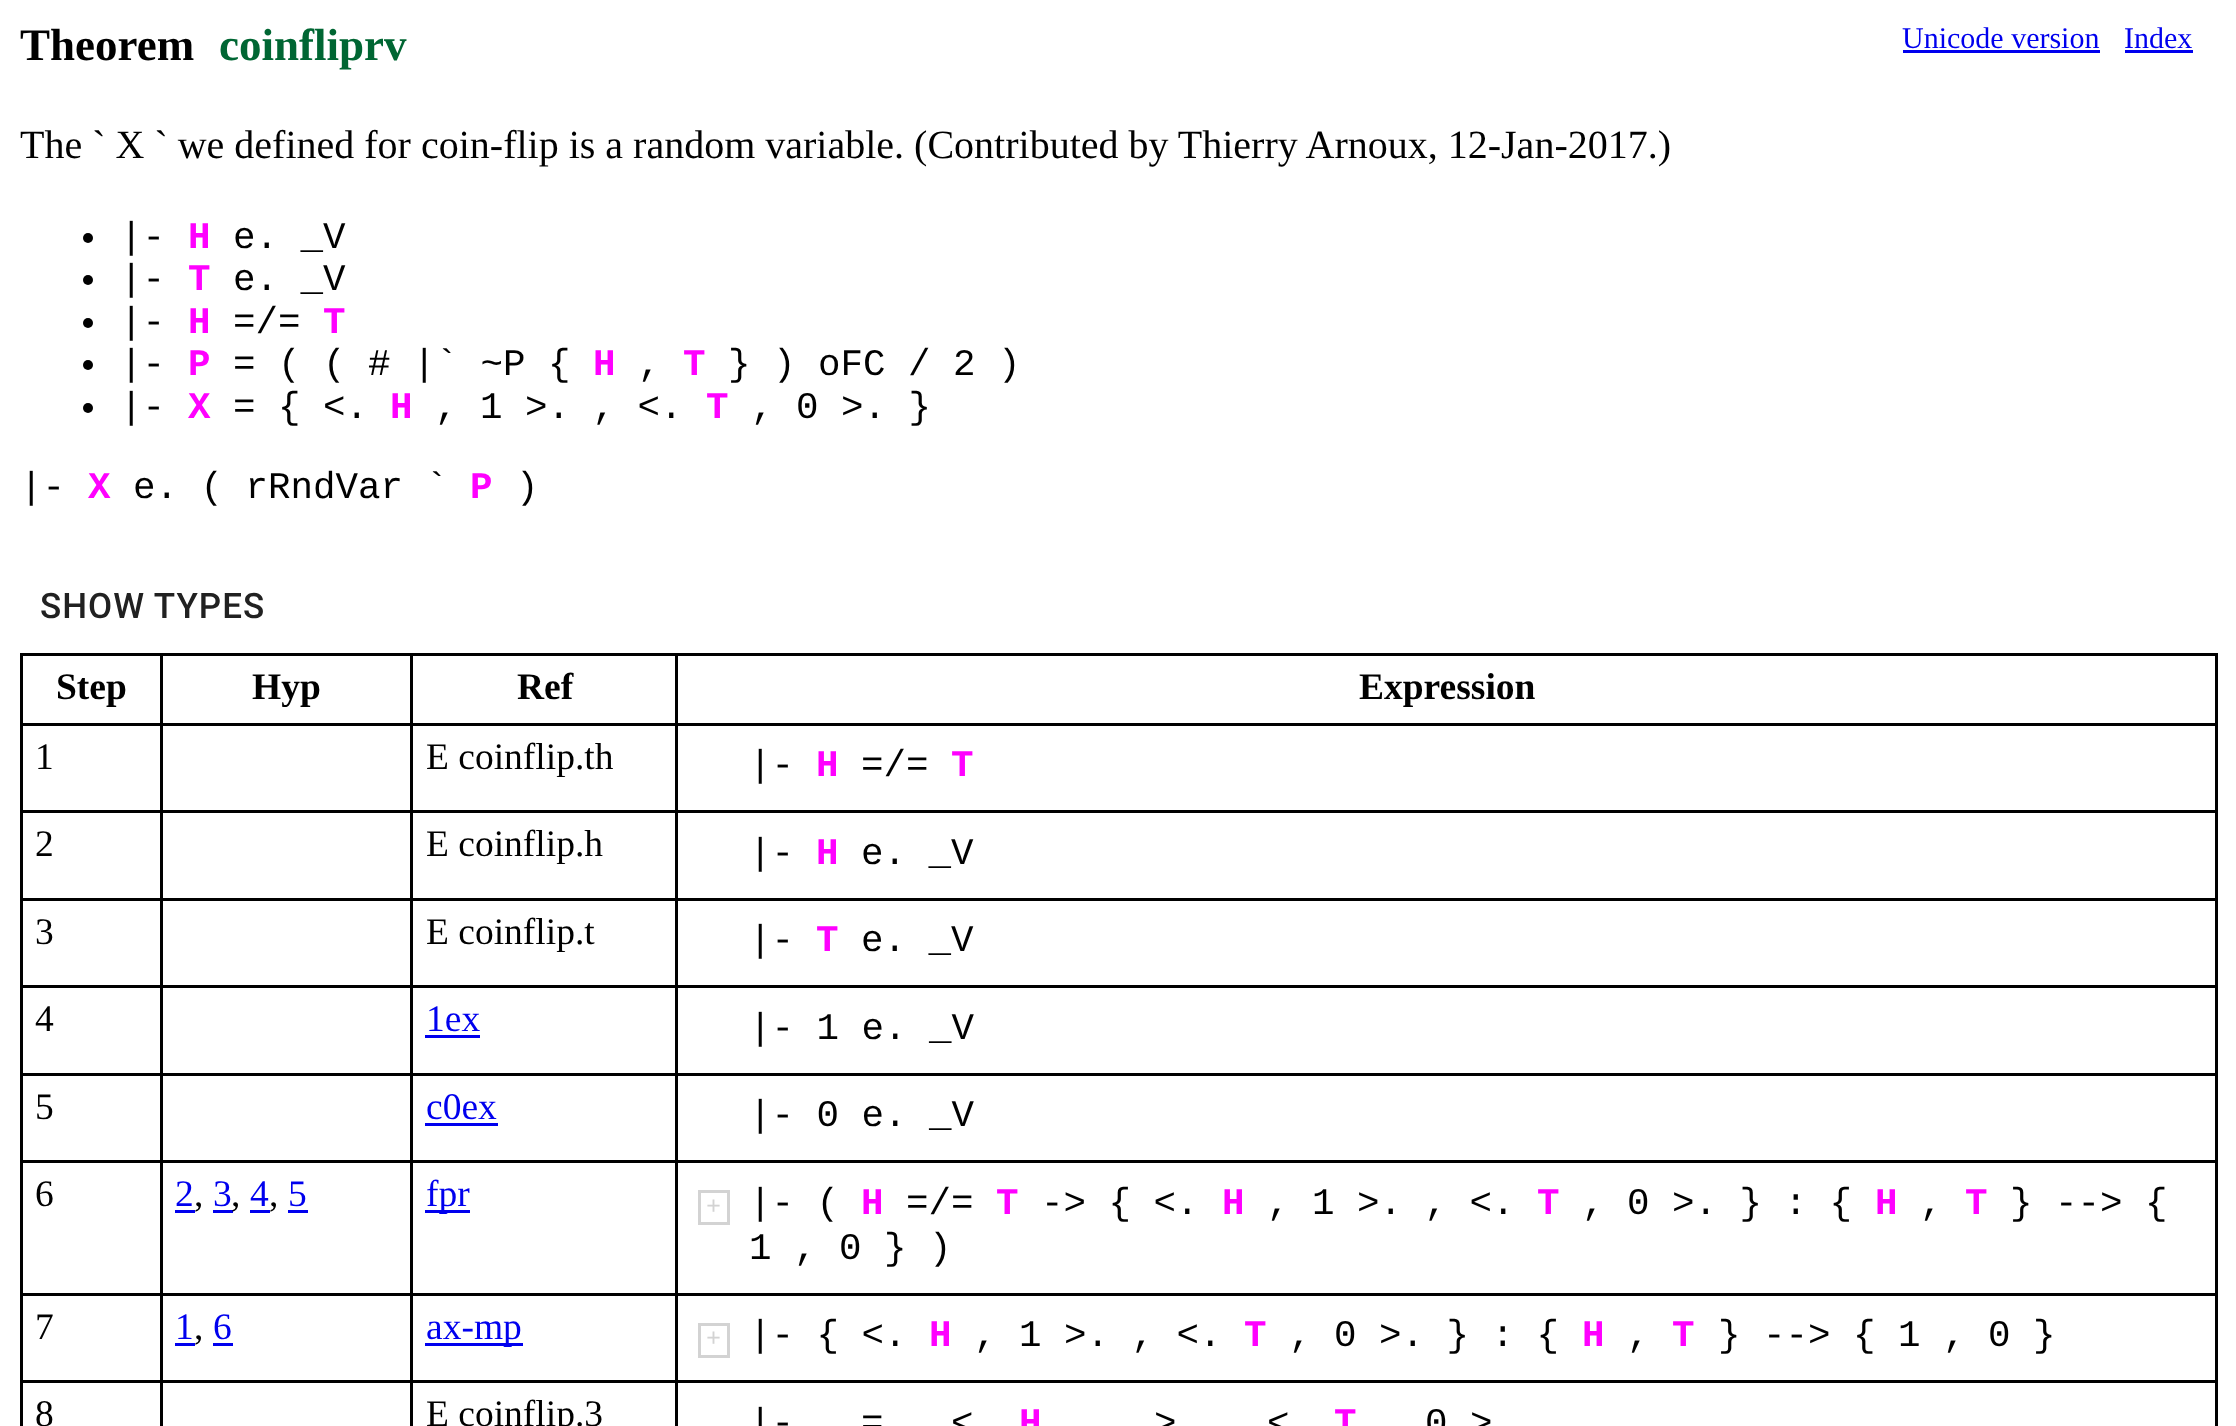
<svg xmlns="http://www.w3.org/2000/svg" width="2236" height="1426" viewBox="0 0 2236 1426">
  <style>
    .t1 { font: bold 45px Liberation Serif; fill: #000; }
    .t2 { font: bold 45px Liberation Serif; fill: #063; }
    .t3 { font: 30px Liberation Serif; fill: #00e; }
    .t4 { font: 40px Liberation Serif; fill: #000; }
    .t5 { font: 37.5px Liberation Mono; fill: #000; }
    .t6 { font: bold 37.5px Liberation Mono; fill: #f0f; }
    .t7 { font: 500 35px Roboto; letter-spacing: 1px; fill: #212121; }
    .t8 { font: bold 37.5px Liberation Serif; fill: #000; }
    .t9 { font: 37.5px Liberation Serif; fill: #000; }
    .t10 { font: 37.5px Liberation Serif; fill: #00e; }
    .t11 { font: 25px Liberation Mono; fill: #d3d3d3; }
  </style>
  <rect width="100%" height="100%" fill="#fff"/>
  <text x="20" y="60" class="t1">Theorem</text>
  <text x="219" y="60" class="t2">coinfliprv</text>
  <text x="1902" y="48" class="t3">Unicode version</text>
  <rect x="1903" y="50" width="197" height="3" fill="#00e"/>
  <text x="2124" y="48" class="t3">Index</text>
  <rect x="2125" y="50" width="68" height="3" fill="#00e"/>
  <text x="20" y="158" class="t4">The ` X ` we defined for coin-flip is a random variable. (Contributed by Thierry Arnoux, 12-Jan-2017.)</text>
  <circle cx="88" cy="238" r="5" fill="#000"/>
  <text x="120" y="248" class="t5">|-</text>
  <text x="188" y="248" class="t6">H</text>
  <text x="233" y="248" class="t5">e. _V</text>
  <circle cx="88" cy="280" r="5" fill="#000"/>
  <text x="120" y="290" class="t5">|-</text>
  <text x="188" y="290" class="t6">T</text>
  <text x="233" y="290" class="t5">e. _V</text>
  <circle cx="88" cy="323" r="5" fill="#000"/>
  <text x="120" y="333" class="t5">|-</text>
  <text x="188" y="333" class="t6">H</text>
  <text x="233" y="333" class="t5">=/=</text>
  <text x="323" y="333" class="t6">T</text>
  <circle cx="88" cy="365" r="5" fill="#000"/>
  <text x="120" y="375" class="t5">|-</text>
  <text x="188" y="375" class="t6">P</text>
  <text x="233" y="375" class="t5">= ( ( # |` ~P {</text>
  <text x="593" y="375" class="t6">H</text>
  <text x="683" y="375" class="t6">T</text>
  <text x="728" y="375" class="t5">} ) oFC / 2 )</text>
  <text x="638" y="375" class="t5">,</text>
  <circle cx="88" cy="408" r="5" fill="#000"/>
  <text x="120" y="418" class="t5">|-</text>
  <text x="188" y="418" class="t6">X</text>
  <text x="233" y="418" class="t5">= { &lt;.</text>
  <text x="390" y="418" class="t6">H</text>
  <text x="435" y="418" class="t5">, 1 &gt;. , &lt;.</text>
  <text x="706" y="418" class="t6">T</text>
  <text x="751" y="418" class="t5">, 0 &gt;. }</text>
  <text x="20" y="498" class="t5">|-</text>
  <text x="88" y="498" class="t6">X</text>
  <text x="133" y="498" class="t5">e. ( rRndVar `</text>
  <text x="470" y="498" class="t6">P</text>
  <text x="516" y="498" class="t5">)</text>
  <text x="40" y="618" class="t7">SHOW TYPES</text>
  <rect x="675" y="653" width="1543" height="3" fill="#000"/>
  <rect x="675" y="723" width="1543" height="3" fill="#000"/>
  <rect x="675" y="810" width="1543" height="3" fill="#000"/>
  <rect x="675" y="898" width="1543" height="3" fill="#000"/>
  <rect x="675" y="985" width="1543" height="3" fill="#000"/>
  <rect x="675" y="1073" width="1543" height="3" fill="#000"/>
  <rect x="675" y="1160" width="1543" height="3" fill="#000"/>
  <rect x="675" y="1293" width="1543" height="3" fill="#000"/>
  <rect x="675" y="1380" width="1543" height="3" fill="#000"/>
  <rect x="675" y="1380" width="3" height="46" fill="#000"/>
  <rect x="410" y="1380" width="268" height="3" fill="#000"/>
  <rect x="675" y="1293" width="3" height="90" fill="#000"/>
  <rect x="410" y="1293" width="268" height="3" fill="#000"/>
  <rect x="675" y="1160" width="3" height="135" fill="#000"/>
  <rect x="410" y="1160" width="268" height="3" fill="#000"/>
  <rect x="675" y="1073" width="3" height="90" fill="#000"/>
  <rect x="410" y="1073" width="268" height="3" fill="#000"/>
  <rect x="675" y="985" width="3" height="90" fill="#000"/>
  <rect x="410" y="985" width="268" height="3" fill="#000"/>
  <rect x="675" y="898" width="3" height="90" fill="#000"/>
  <rect x="410" y="898" width="268" height="3" fill="#000"/>
  <rect x="675" y="810" width="3" height="90" fill="#000"/>
  <rect x="410" y="810" width="268" height="3" fill="#000"/>
  <rect x="675" y="723" width="3" height="90" fill="#000"/>
  <rect x="410" y="723" width="268" height="3" fill="#000"/>
  <rect x="675" y="653" width="3" height="72" fill="#000"/>
  <rect x="410" y="653" width="268" height="3" fill="#000"/>
  <rect x="410" y="1380" width="3" height="46" fill="#000"/>
  <rect x="160" y="1380" width="253" height="3" fill="#000"/>
  <rect x="410" y="1293" width="3" height="90" fill="#000"/>
  <rect x="160" y="1293" width="253" height="3" fill="#000"/>
  <rect x="410" y="1160" width="3" height="135" fill="#000"/>
  <rect x="160" y="1160" width="253" height="3" fill="#000"/>
  <rect x="410" y="1073" width="3" height="90" fill="#000"/>
  <rect x="160" y="1073" width="253" height="3" fill="#000"/>
  <rect x="410" y="985" width="3" height="90" fill="#000"/>
  <rect x="160" y="985" width="253" height="3" fill="#000"/>
  <rect x="410" y="898" width="3" height="90" fill="#000"/>
  <rect x="160" y="898" width="253" height="3" fill="#000"/>
  <rect x="410" y="810" width="3" height="90" fill="#000"/>
  <rect x="160" y="810" width="253" height="3" fill="#000"/>
  <rect x="410" y="723" width="3" height="90" fill="#000"/>
  <rect x="160" y="723" width="253" height="3" fill="#000"/>
  <rect x="410" y="653" width="3" height="72" fill="#000"/>
  <rect x="160" y="653" width="253" height="3" fill="#000"/>
  <rect x="160" y="1380" width="3" height="46" fill="#000"/>
  <rect x="20" y="1380" width="143" height="3" fill="#000"/>
  <rect x="160" y="1293" width="3" height="90" fill="#000"/>
  <rect x="20" y="1293" width="143" height="3" fill="#000"/>
  <rect x="160" y="1160" width="3" height="135" fill="#000"/>
  <rect x="20" y="1160" width="143" height="3" fill="#000"/>
  <rect x="160" y="1073" width="3" height="90" fill="#000"/>
  <rect x="20" y="1073" width="143" height="3" fill="#000"/>
  <rect x="160" y="985" width="3" height="90" fill="#000"/>
  <rect x="20" y="985" width="143" height="3" fill="#000"/>
  <rect x="160" y="898" width="3" height="90" fill="#000"/>
  <rect x="20" y="898" width="143" height="3" fill="#000"/>
  <rect x="160" y="810" width="3" height="90" fill="#000"/>
  <rect x="20" y="810" width="143" height="3" fill="#000"/>
  <rect x="160" y="723" width="3" height="90" fill="#000"/>
  <rect x="20" y="723" width="143" height="3" fill="#000"/>
  <rect x="160" y="653" width="3" height="72" fill="#000"/>
  <rect x="20" y="653" width="143" height="3" fill="#000"/>
  <rect x="20" y="1380" width="3" height="46" fill="#000"/>
  <rect x="20" y="1293" width="3" height="90" fill="#000"/>
  <rect x="20" y="1160" width="3" height="135" fill="#000"/>
  <rect x="20" y="1073" width="3" height="90" fill="#000"/>
  <rect x="20" y="985" width="3" height="90" fill="#000"/>
  <rect x="20" y="898" width="3" height="90" fill="#000"/>
  <rect x="20" y="810" width="3" height="90" fill="#000"/>
  <rect x="20" y="723" width="3" height="90" fill="#000"/>
  <rect x="20" y="653" width="3" height="72" fill="#000"/>
  <text x="56" y="699" class="t8">Step</text>
  <text x="252" y="699" class="t8">Hyp</text>
  <text x="517" y="699" class="t8">Ref</text>
  <rect x="2215" y="1380" width="3" height="46" fill="#000"/>
  <rect x="2215" y="1293" width="3" height="90" fill="#000"/>
  <rect x="2215" y="1160" width="3" height="135" fill="#000"/>
  <rect x="2215" y="1073" width="3" height="90" fill="#000"/>
  <rect x="2215" y="985" width="3" height="90" fill="#000"/>
  <rect x="2215" y="898" width="3" height="90" fill="#000"/>
  <rect x="2215" y="810" width="3" height="90" fill="#000"/>
  <rect x="2215" y="723" width="3" height="90" fill="#000"/>
  <rect x="2215" y="653" width="3" height="72" fill="#000"/>
  <text x="1359" y="699" class="t8">Expression</text>
  <text x="35" y="769" class="t9">1</text>
  <text x="426" y="769" class="t9">E coinflip.th</text>
  <text x="749" y="776" class="t5">|-</text>
  <text x="816" y="776" class="t6">H</text>
  <text x="861" y="776" class="t5">=/=</text>
  <text x="951" y="776" class="t6">T</text>
  <text x="35" y="856" class="t9">2</text>
  <text x="426" y="856" class="t9">E coinflip.h</text>
  <text x="749" y="864" class="t5">|-</text>
  <text x="816" y="864" class="t6">H</text>
  <text x="861" y="864" class="t5">e. _V</text>
  <text x="35" y="944" class="t9">3</text>
  <text x="426" y="944" class="t9">E coinflip.t</text>
  <text x="749" y="951" class="t5">|-</text>
  <text x="816" y="951" class="t6">T</text>
  <text x="861" y="951" class="t5">e. _V</text>
  <text x="35" y="1031" class="t9">4</text>
  <text x="426" y="1031" class="t10">1ex</text>
  <rect x="425" y="1035" width="55" height="3" fill="#00e"/>
  <text x="749" y="1039" class="t5">|- 1 e. _V</text>
  <text x="35" y="1119" class="t9">5</text>
  <text x="426" y="1119" class="t10">c0ex</text>
  <rect x="425" y="1123" width="73" height="3" fill="#00e"/>
  <text x="749" y="1126" class="t5">|- 0 e. _V</text>
  <text x="35" y="1206" class="t9">6</text>
  <text x="175" y="1206" class="t10">2</text>
  <rect x="175" y="1210" width="20" height="3" fill="#00e"/>
  <text x="194" y="1206" class="t9">,</text>
  <text x="213" y="1206" class="t10">3</text>
  <rect x="213" y="1210" width="20" height="3" fill="#00e"/>
  <text x="231" y="1206" class="t9">,</text>
  <text x="250" y="1206" class="t10">4</text>
  <rect x="250" y="1210" width="20" height="3" fill="#00e"/>
  <text x="269" y="1206" class="t9">,</text>
  <text x="288" y="1206" class="t10">5</text>
  <rect x="288" y="1210" width="20" height="3" fill="#00e"/>
  <rect x="425" y="1210" width="45" height="3" fill="#00e"/>
  <text x="426" y="1206" class="t10">fpr</text>
  <rect x="699.5" y="1191.5" width="29" height="32" fill="none" stroke="#d3d3d3" stroke-width="3"/>
  <text x="706" y="1214" class="t11">+</text>
  <text x="749" y="1214" class="t5">|- (</text>
  <text x="861" y="1214" class="t6">H</text>
  <text x="906" y="1214" class="t5">=/=</text>
  <text x="996" y="1214" class="t6">T</text>
  <text x="1041" y="1214" class="t5">-&gt; { &lt;.</text>
  <text x="1222" y="1214" class="t6">H</text>
  <text x="1267" y="1214" class="t5">, 1 &gt;. , &lt;.</text>
  <text x="1537" y="1214" class="t6">T</text>
  <text x="1582" y="1214" class="t5">, 0 &gt;. } : {</text>
  <text x="1875" y="1214" class="t6">H</text>
  <text x="1920" y="1214" class="t5">,</text>
  <text x="1965" y="1214" class="t6">T</text>
  <text x="2010" y="1214" class="t5">} --&gt; {</text>
  <text x="749" y="1259" class="t5">1 , 0 } )</text>
  <text x="35" y="1339" class="t9">7</text>
  <text x="175" y="1339" class="t10">1</text>
  <rect x="175" y="1343" width="20" height="3" fill="#00e"/>
  <text x="194" y="1339" class="t9">,</text>
  <text x="213" y="1339" class="t10">6</text>
  <rect x="213" y="1343" width="20" height="3" fill="#00e"/>
  <rect x="425" y="1343" width="98" height="3" fill="#00e"/>
  <text x="426" y="1339" class="t10">ax-mp</text>
  <rect x="699.5" y="1324.5" width="29" height="32" fill="none" stroke="#d3d3d3" stroke-width="3"/>
  <text x="706" y="1346" class="t11">+</text>
  <text x="749" y="1346" class="t5">|- { &lt;.</text>
  <text x="929" y="1346" class="t6">H</text>
  <text x="974" y="1346" class="t5">, 1 &gt;. , &lt;.</text>
  <text x="1244" y="1346" class="t6">T</text>
  <text x="1289" y="1346" class="t5">, 0 &gt;. } : {</text>
  <text x="1582" y="1346" class="t6">H</text>
  <text x="1627" y="1346" class="t5">,</text>
  <text x="1672" y="1346" class="t6">T</text>
  <text x="1718" y="1346" class="t5">} --&gt; { 1 , 0 }</text>
  <text x="35" y="1426" class="t9">8</text>
  <text x="426" y="1426" class="t9">E coinflip.3</text>
  <text x="749" y="1434" class="t5">|-</text>
  <text x="861" y="1434" class="t5">=</text>
  <text x="951" y="1434" class="t5">&lt;</text>
  <text x="1019" y="1434" class="t6">H</text>
  <text x="1154" y="1434" class="t5">&gt;</text>
  <text x="1267" y="1434" class="t5">&lt;</text>
  <text x="1334" y="1434" class="t6">T</text>
  <text x="1425" y="1434" class="t5">0 &gt;</text>
</svg>
